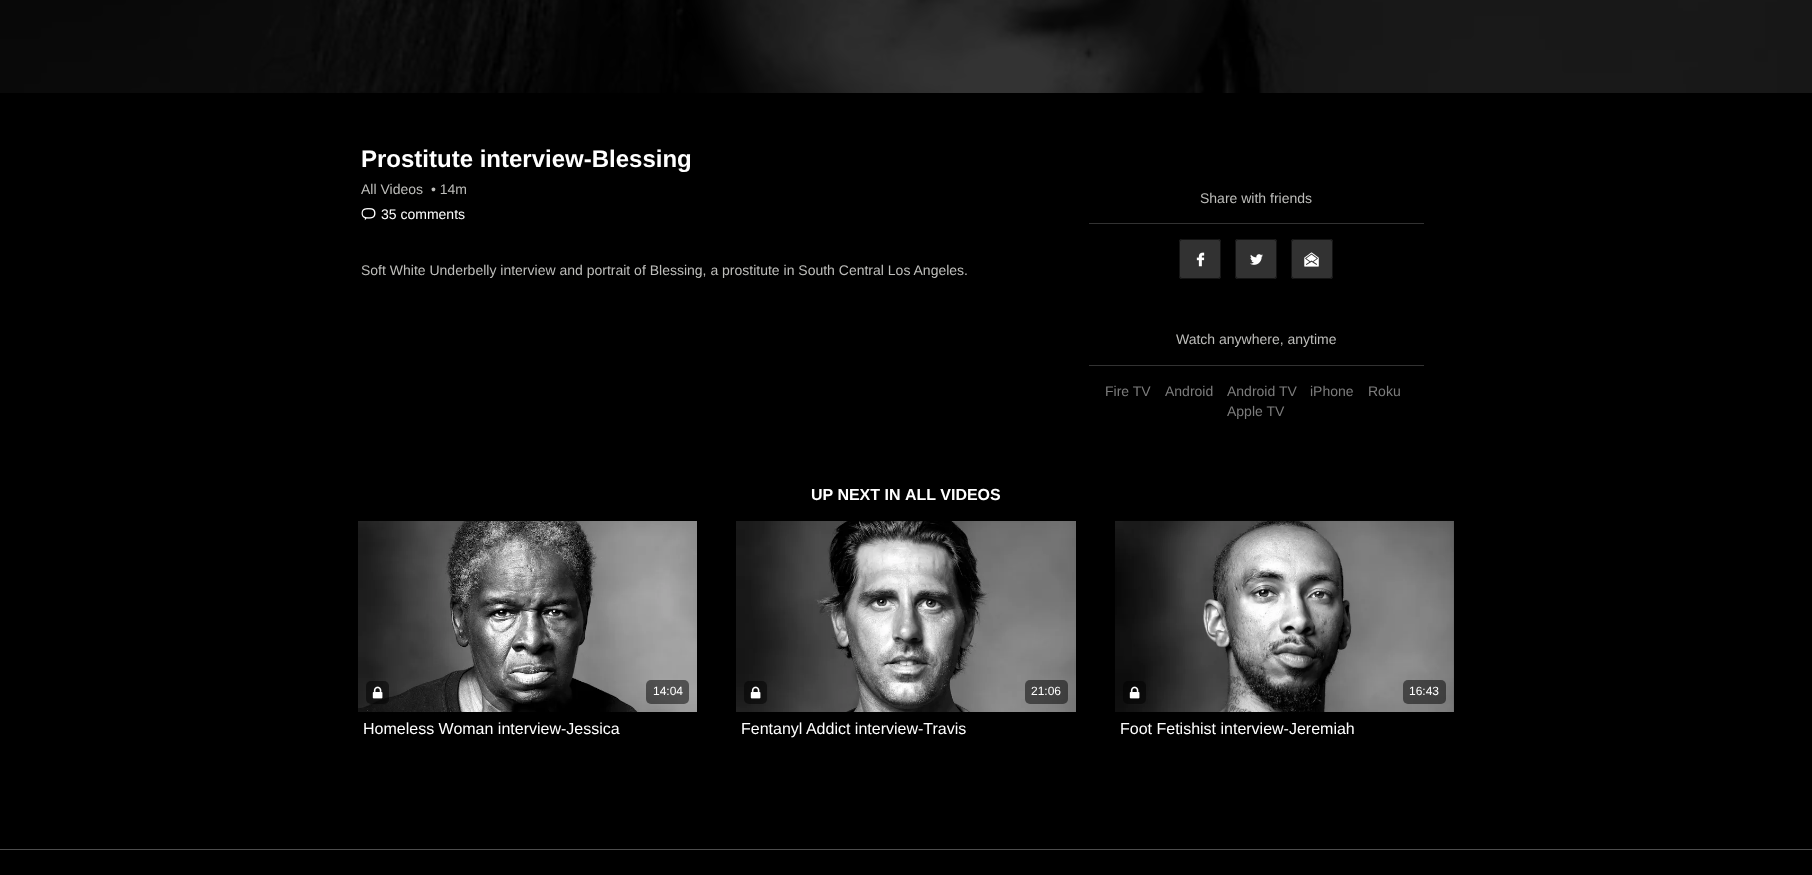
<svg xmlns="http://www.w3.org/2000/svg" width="1812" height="875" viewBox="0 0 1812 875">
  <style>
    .t1 { font: bold 24px Liberation Sans; fill: #fff; }
    .t2 { font: 14px Liberation Sans; fill: #bebebb; }
    .t3 { font: 14px Liberation Sans; fill: #fff; }
    .t4 { font: 14px Liberation Sans; fill: #7c7c7c; }
    .t5 { font: bold 16px Liberation Sans; fill: #fff; }
    .t6 { font: 12px Liberation Sans; fill: #fff; }
    .t7 { font: 16px Liberation Sans; fill: #fff; }
  </style>
  <rect width="100%" height="100%" fill="#000"/>
  <image x="0" y="0" width="1812" height="93" href="images/1.png"/>
  <rect x="0" y="849" width="1812" height="1" fill="#4d4d4d"/>
  <text x="361" y="167" class="t1">Prostitute interview-Blessing</text>
  <text x="361" y="194" class="t2">All Videos</text>
  <text x="431" y="194" class="t2">• 14m</text>
  <image x="361" y="208" width="15" height="13" href="images/2.png"/>
  <text x="381" y="219" class="t3">35 comments</text>
  <text x="361" y="275" class="t2">Soft White Underbelly interview and portrait of Blessing, a prostitute in South Central Los Angeles.</text>
  <rect x="1089" y="223" width="335" height="1" fill="#323232"/>
  <text x="1200" y="203" class="t2">Share with friends</text>
  <rect x="1179" y="239" width="42" height="40" rx="3" fill="#323232"/>
  <image x="1196" y="252" width="9" height="15" href="images/3.png"/>
  <rect x="1179.5" y="239.5" width="41" height="39" rx="2.5" fill="none" stroke="#141414"/>
  <rect x="1235" y="239" width="42" height="40" rx="3" fill="#323232"/>
  <image x="1250" y="254" width="13" height="11" href="images/4.png"/>
  <rect x="1235.5" y="239.5" width="41" height="39" rx="2.5" fill="none" stroke="#141414"/>
  <rect x="1291" y="239" width="42" height="40" rx="3" fill="#323232"/>
  <image x="1304" y="252" width="15" height="15" href="images/5.png"/>
  <rect x="1291.5" y="239.5" width="41" height="39" rx="2.5" fill="none" stroke="#141414"/>
  <rect x="1089" y="365" width="335" height="1" fill="#323232"/>
  <text x="1176" y="344" class="t2">Watch anywhere, anytime</text>
  <text x="1105" y="396" class="t4">Fire TV</text>
  <text x="1165" y="396" class="t4">Android</text>
  <text x="1227" y="396" class="t4">Android TV</text>
  <text x="1310" y="396" class="t4">iPhone</text>
  <text x="1368" y="396" class="t4">Roku</text>
  <text x="1227" y="416" class="t4">Apple TV</text>
  <text x="811" y="500" class="t5">UP NEXT IN</text>
  <text x="905" y="500" class="t5">ALL VIDEOS</text>
  <image x="358" y="521" width="339" height="191" href="images/6.png"/>
  <rect x="366" y="681" width="23" height="23" rx="5" fill="#00000080"/>
  <image x="372" y="686" width="11" height="13" href="images/7.png"/>
  <rect x="646" y="680" width="43" height="24" rx="5" fill="#00000080"/>
  <text x="653" y="695" class="t6">14:04</text>
  <text x="363" y="734" class="t7">Homeless Woman interview-Jessica</text>
  <image x="736" y="521" width="340" height="191" href="images/8.png"/>
  <rect x="744" y="681" width="23" height="23" rx="5" fill="#00000080"/>
  <image x="750" y="686" width="11" height="13" href="images/9.png"/>
  <rect x="1025" y="680" width="43" height="24" rx="5" fill="#00000080"/>
  <text x="1031" y="695" class="t6">21:06</text>
  <text x="741" y="734" class="t7">Fentanyl Addict interview-Travis</text>
  <image x="1115" y="520" width="339" height="192" href="images/10.png"/>
  <rect x="1123" y="681" width="23" height="23" rx="5" fill="#00000080"/>
  <image x="1129" y="686" width="11" height="13" href="images/11.png"/>
  <rect x="1403" y="680" width="43" height="24" rx="5" fill="#00000080"/>
  <text x="1409" y="695" class="t6">16:43</text>
  <text x="1120" y="734" class="t7">Foot Fetishist interview-Jeremiah</text>
</svg>
